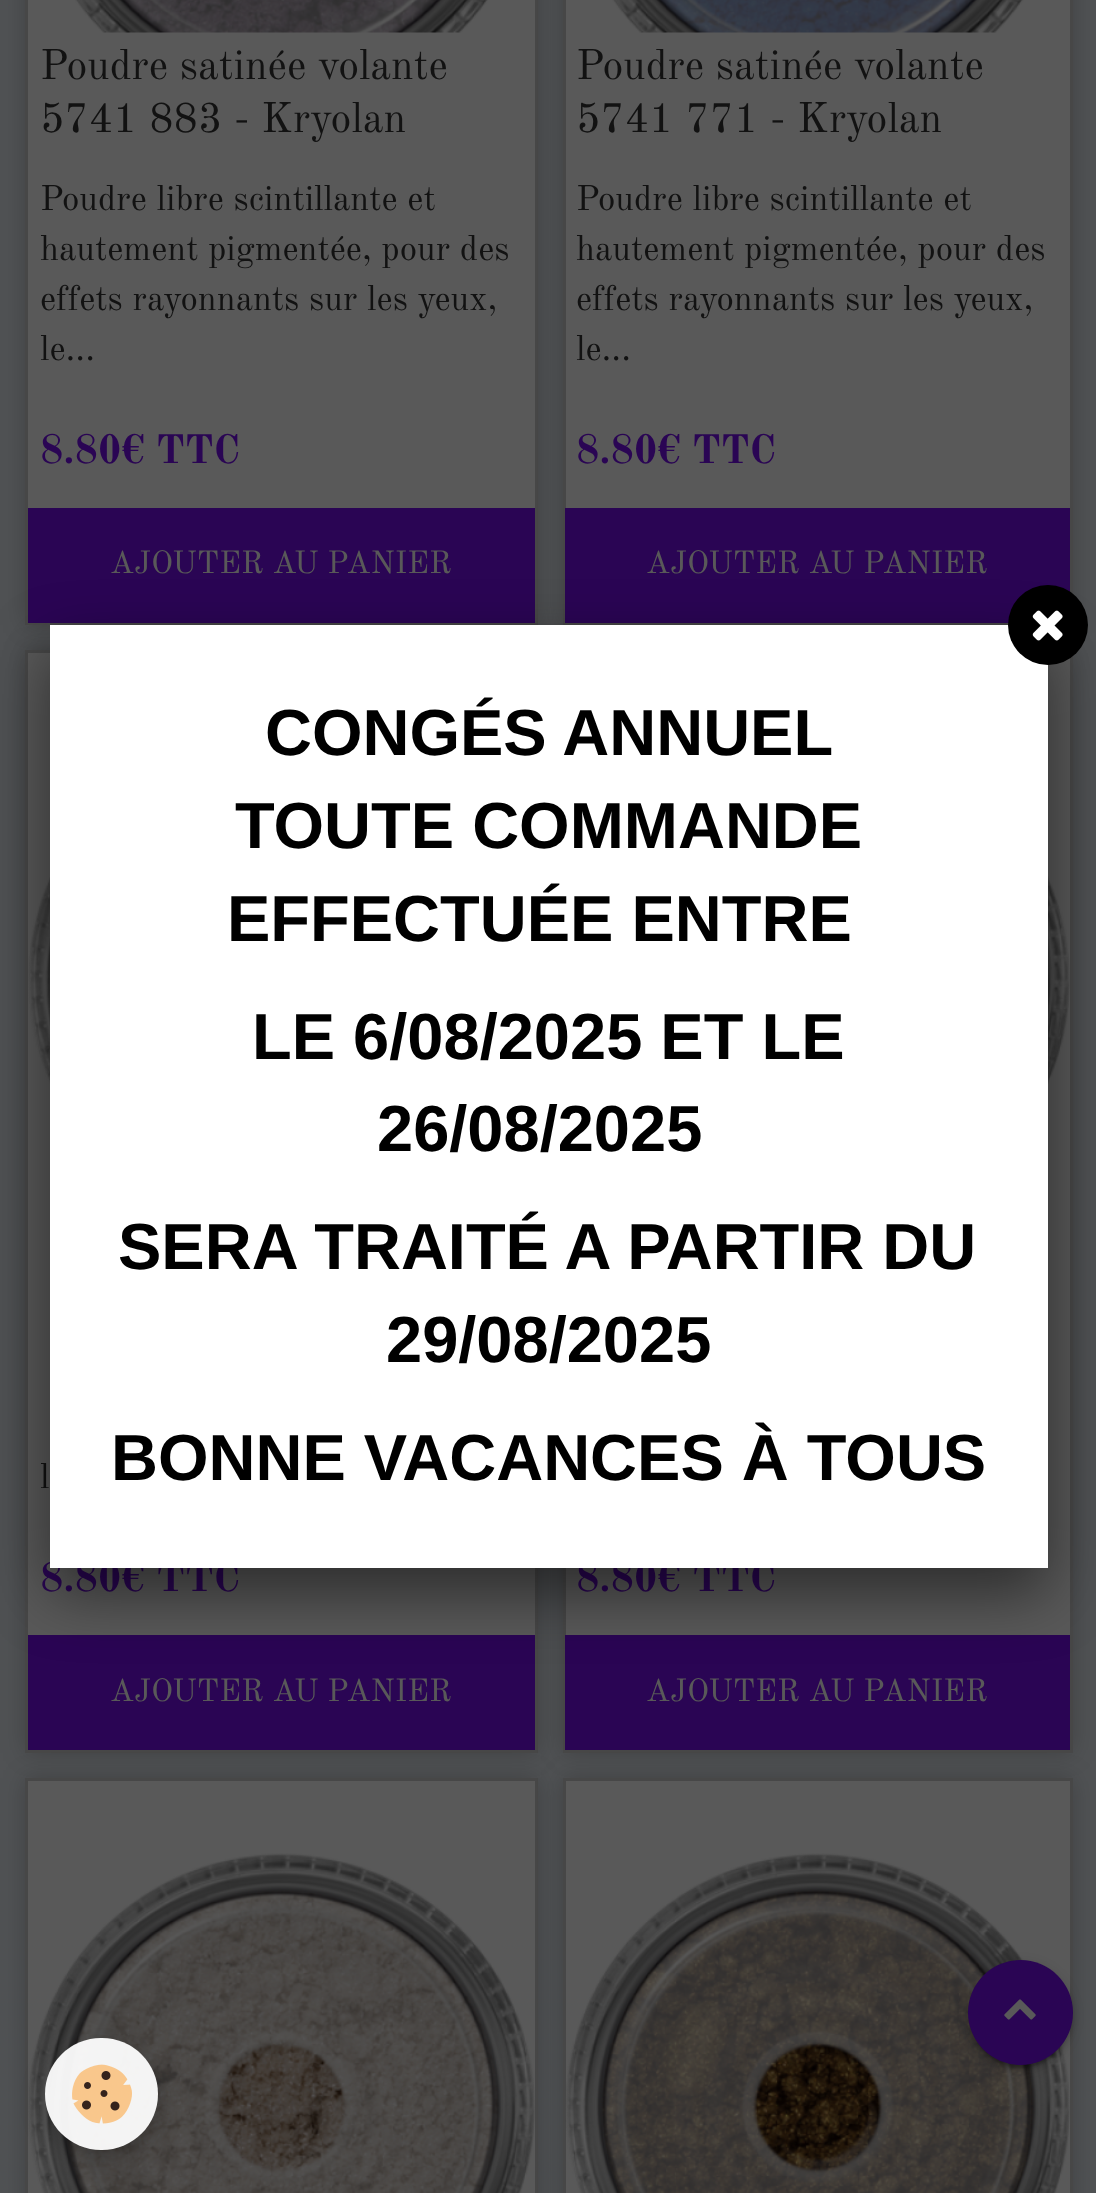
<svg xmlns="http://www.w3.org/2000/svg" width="1096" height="2193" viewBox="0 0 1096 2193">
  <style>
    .t1 { font: 42px Old Standard TT; fill: #121212; }
    .t2 { font: 35px Old Standard TT; fill: #121212; }
    .t3 { font: bold 40.25px Old Standard TT; fill: #2a0554; }
    .t4 { font: 31.5px Old Standard TT; fill: #595959; }
    .t5 { font: bold 65px Liberation Sans; fill: #000; }
  </style>
  <defs>
    <clipPath id="clip1"><path d="M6 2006H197V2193H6ZM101 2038H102C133 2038 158 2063 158 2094C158 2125 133 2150 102 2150H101C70 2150 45 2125 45 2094C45 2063 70 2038 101 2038Z" clip-rule="evenodd"/></clipPath>
  </defs>
  <rect width="100%" height="100%" fill="#505254"/>
  <rect x="25" y="-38" width="513" height="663" fill="#00000033" filter="blur(12.5px)"/>
  <rect x="28" y="0" width="507" height="508" fill="#595959"/>
  <rect x="26.5" y="-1.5" width="510" height="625" fill="none" stroke="#474747" stroke-width="3"/>
  <image x="75" y="0" width="413" height="33" href="images/1.png"/>
  <text x="40" y="79" class="t1">Poudre satinée volante</text>
  <text x="40" y="132" class="t1">5741 883 - Kryolan</text>
  <text x="40" y="210" class="t2">Poudre libre scintillante et</text>
  <text x="40" y="260" class="t2">hautement pigmentée, pour des</text>
  <text x="40" y="310" class="t2">effets rayonnants sur les yeux,</text>
  <text x="40" y="360" class="t2">le...</text>
  <text x="40" y="463" class="t3">8.80€ TTC</text>
  <rect x="28" y="508" width="507" height="115" fill="#2a0554"/>
  <text x="110" y="573" class="t4">AJOUTER AU PANIER</text>
  <rect x="563" y="-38" width="510" height="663" fill="#00000033" filter="blur(12.5px)"/>
  <rect x="566" y="0" width="504" height="508" fill="#595959"/>
  <rect x="564.5" y="-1.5" width="507" height="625" fill="none" stroke="#474747" stroke-width="3"/>
  <image x="612" y="0" width="412" height="33" href="images/2.png"/>
  <text x="576" y="79" class="t1">Poudre satinée volante</text>
  <text x="576" y="132" class="t1">5741 771 - Kryolan</text>
  <text x="576" y="210" class="t2">Poudre libre scintillante et</text>
  <text x="576" y="260" class="t2">hautement pigmentée, pour des</text>
  <text x="576" y="310" class="t2">effets rayonnants sur les yeux,</text>
  <text x="576" y="360" class="t2">le...</text>
  <text x="576" y="463" class="t3">8.80€ TTC</text>
  <rect x="565" y="508" width="505" height="115" fill="#2a0554"/>
  <text x="646" y="573" class="t4">AJOUTER AU PANIER</text>
  <rect x="25" y="650" width="513" height="1103" fill="#00000033" filter="blur(12.5px)"/>
  <rect x="28" y="653" width="507" height="982" fill="#595959"/>
  <rect x="26.5" y="651.5" width="510" height="1100" fill="none" stroke="#474747" stroke-width="3"/>
  <image x="28" y="877" width="22" height="207" href="images/3.png"/>
  <text x="40" y="1488" class="t2">l</text>
  <text x="40" y="1591" class="t3">8.80€ TTC</text>
  <rect x="28" y="1635" width="507" height="115" fill="#2a0554"/>
  <text x="110" y="1701" class="t4">AJOUTER AU PANIER</text>
  <rect x="563" y="650" width="510" height="1103" fill="#00000033" filter="blur(12.5px)"/>
  <rect x="566" y="658" width="504" height="977" fill="#595959"/>
  <rect x="564.5" y="651.5" width="507" height="1100" fill="none" stroke="#474747" stroke-width="3"/>
  <image x="1048" y="876" width="22" height="208" href="images/4.png"/>
  <text x="576" y="1591" class="t3">8.80€ TTC</text>
  <rect x="565" y="1635" width="505" height="115" fill="#2a0554"/>
  <text x="646" y="1701" class="t4">AJOUTER AU PANIER</text>
  <rect x="25" y="1778" width="513" height="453" fill="#00000033" filter="blur(12.5px)"/>
  <rect x="26.5" y="1779.5" width="510" height="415" fill="#595959" stroke="#474747" stroke-width="3"/>
  <image x="28" y="1853" width="507" height="340" href="images/5.png"/>
  <rect x="563" y="1778" width="510" height="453" fill="#00000033" filter="blur(12.5px)"/>
  <rect x="564.5" y="1779.5" width="507" height="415" fill="#595959" stroke="#474747" stroke-width="3"/>
  <image x="565" y="1853" width="505" height="340" href="images/6.png"/>
  <rect x="50" y="650" width="998" height="943" fill="#00000080" filter="blur(31px)"/>
  <rect x="50" y="625" width="998" height="943" fill="#fff"/>
  <circle cx="1048" cy="625" r="40" fill="#000"/>
  <image x="1032" y="610" width="31" height="31" href="images/7.png"/>
  <text x="265" y="755" class="t5">CONGÉS ANNUEL</text>
  <text x="235" y="848" class="t5">TOUTE COMMANDE</text>
  <text x="227" y="941" class="t5">EFFECTUÉE ENTRE</text>
  <text x="252" y="1059" class="t5">LE 6/08/2025 ET LE</text>
  <text x="377" y="1151" class="t5">26/08/2025</text>
  <text x="118" y="1269" class="t5">SERA TRAITÉ A PARTIR DU</text>
  <text x="386" y="1362" class="t5">29/08/2025</text>
  <text x="111" y="1480" class="t5">BONNE VACANCES À TOUS</text>
  <g clip-path="url(#clip1)">
    <rect x="45" y="2045" width="113" height="113" rx="56.5" fill="#0000003b" filter="blur(12.5px)"/>
  </g>
  <rect x="45" y="2038" width="113" height="112" rx="56" fill="#fffffff0"/>
  <image x="72" y="2064" width="60" height="60" href="images/8.png"/>
  <rect x="968" y="1963" width="105" height="105" rx="52.5" fill="#0000001f" filter="blur(6px)"/>
  <rect x="973" y="1973" width="95" height="95" rx="47.5" fill="#00000033" filter="blur(1px)"/>
  <rect x="968" y="1965" width="105" height="105" rx="52.5" fill="#00000024" filter="blur(2.5px)"/>
  <circle cx="1020.5" cy="2012.5" r="52.5" fill="#2a0554"/>
  <image x="1004" y="1999" width="32" height="21" href="images/9.png"/>
</svg>
